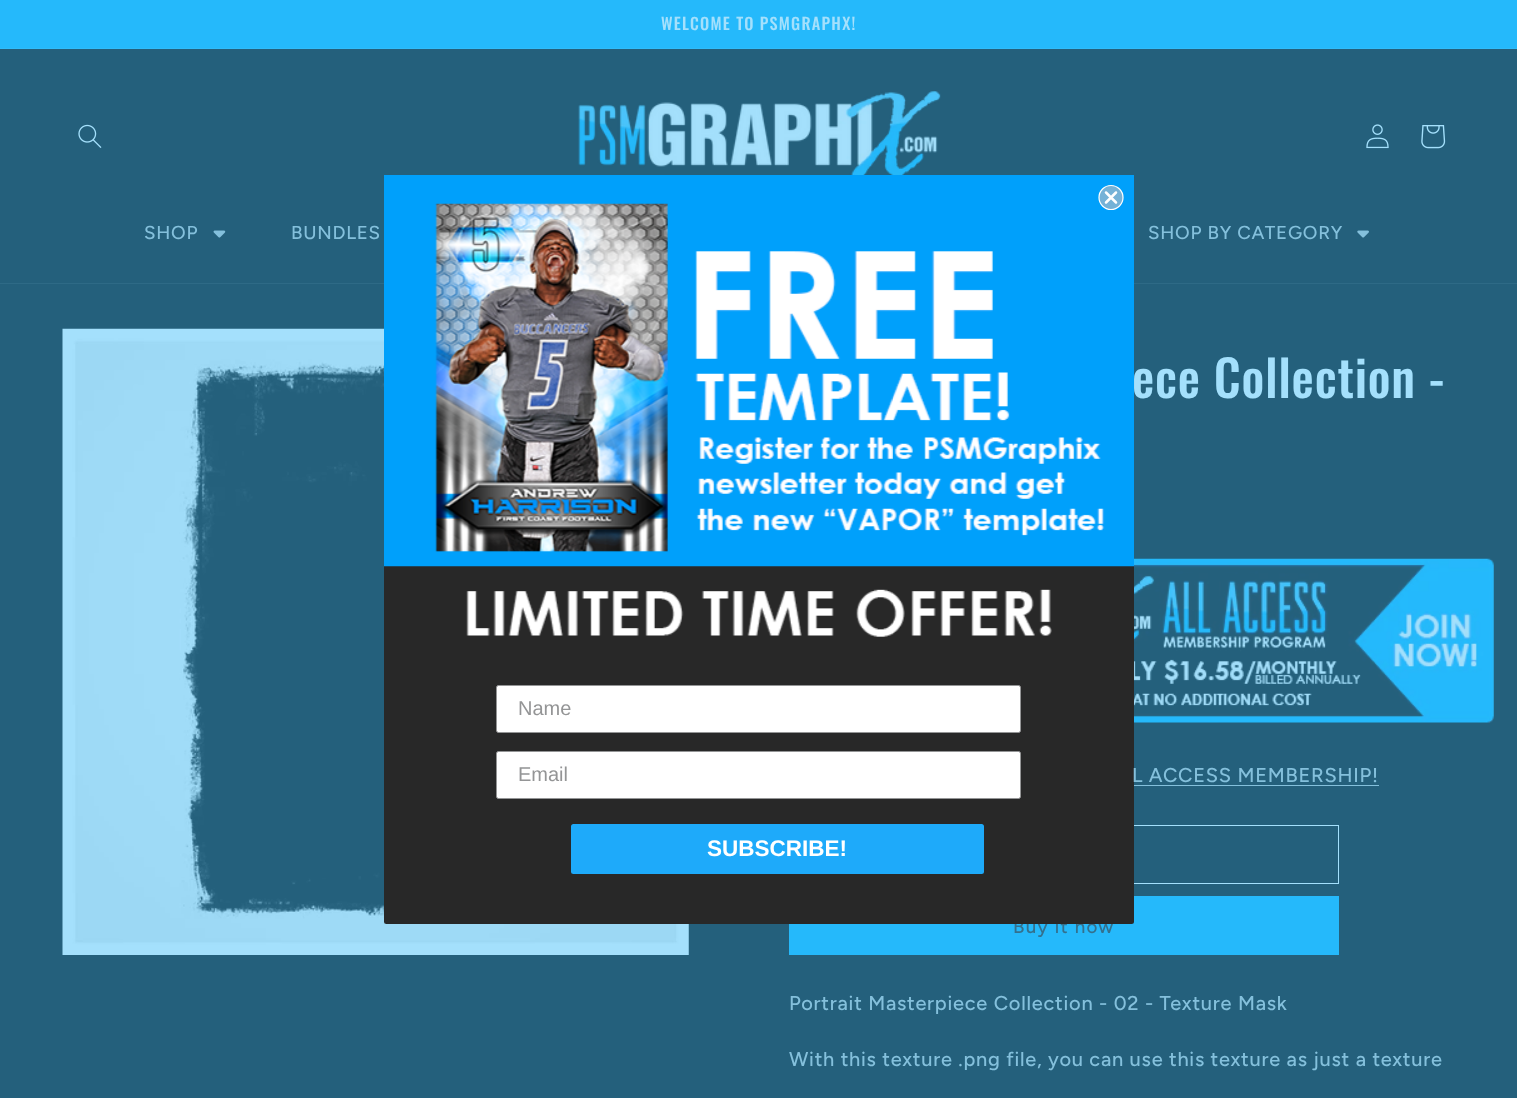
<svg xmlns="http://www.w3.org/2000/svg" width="1517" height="1098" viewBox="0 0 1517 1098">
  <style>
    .t1 { font: 500 16.25px Oswald; letter-spacing: 1.25px; fill: #a4e0fc; }
    .t2 { font: 500 18.75px Figtree; letter-spacing: 0.75px; fill: #84c0dc; }
    .t3 { font: 500 18.75px Figtree; letter-spacing: 1.25px; fill: #34708d; }
    .t4 { font: 20px Liberation Sans; fill: #949596; }
    .t5 { font: bold 22.5px Liberation Sans; fill: #fff; }
    .t6 { font: 500 50px Oswald; letter-spacing: 0.75px; fill: #a4e0fc; }
    .t7 { font: 500 20px Figtree; letter-spacing: 0.75px; fill: #84c0dc; }
  </style>
  <rect width="100%" height="100%" fill="#24607c"/>
  <rect x="0" y="0" width="1517" height="48" fill="#25b9fb"/>
  <rect x="0" y="48" width="1517" height="1" fill="#2fbcfb"/>
  <text x="661" y="30" class="t1">WELCOME TO PSMGRAPHX!</text>
  <rect x="0" y="283" width="1517" height="1" fill="#2e6a86"/>
  <image x="78" y="124" width="24" height="24" href="images/1.png"/>
  <image x="578" y="90" width="363" height="85" href="images/2.png"/>
  <image x="1366" y="124" width="23" height="25" href="images/3.png"/>
  <image x="1421" y="125" width="25" height="24" href="images/4.png"/>
  <text x="144" y="239" class="t2">SHOP</text>
  <image x="213" y="230" width="13" height="8" href="images/5.png"/>
  <text x="291" y="239" class="t2">BUNDLES</text>
  <text x="1148" y="239" class="t2">SHOP BY CATEGORY</text>
  <image x="1357" y="230" width="12" height="8" href="images/6.png"/>
  <image x="62" y="328" width="627" height="627" href="images/9.png"/>
  <rect x="789.5" y="825.5" width="549" height="58" fill="none" stroke="#a4e0fc"/>
  <rect x="789" y="896" width="550" height="59" fill="#25b9fb"/>
  <text x="1013" y="933" class="t3">Buy it now</text>
  <rect x="384" y="175" width="750" height="749" rx="2.5" fill="#282828"/>
  <image x="384" y="175" width="750" height="392" href="images/7.png"/>
  <circle cx="1111" cy="197.5" r="12" fill="#75b2d7" stroke="#fff" stroke-width="1.2"/>
  <path d="M1106 192.5L1116 202.5M1106 202.5L1116 192.5Z" fill="none" stroke="#fff" stroke-width="2.5" stroke-linecap="round" stroke-linejoin="round"/>
  <image x="466" y="589" width="586" height="48" href="images/8.png"/>
  <rect x="496.5" y="685.5" width="524" height="47" rx="2" fill="#fff" stroke="#949596"/>
  <text x="518" y="715" class="t4">Name</text>
  <rect x="496.5" y="751.5" width="524" height="47" rx="2" fill="#fff" stroke="#949596"/>
  <text x="518" y="781" class="t4">Email</text>
  <rect x="571" y="824" width="413" height="50" rx="2.5" fill="#1eaafa"/>
  <text x="707" y="856" class="t5">SUBSCRIBE!</text>
  <text x="1132" y="398" class="t6">ece Collection -</text>
  <image x="1134" y="558" width="360" height="165" href="images/10.png"/>
  <text x="1132" y="782" class="t7">L ACCESS MEMBERSHIP!</text>
  <rect x="1134" y="785" width="245" height="1" fill="#84c0dc"/>
  <text x="789" y="1010" class="t7">Portrait Masterpiece Collection - 02 - Texture Mask</text>
  <text x="789" y="1066" class="t7">With this texture .png file, you can use this texture as just a texture</text>
</svg>
